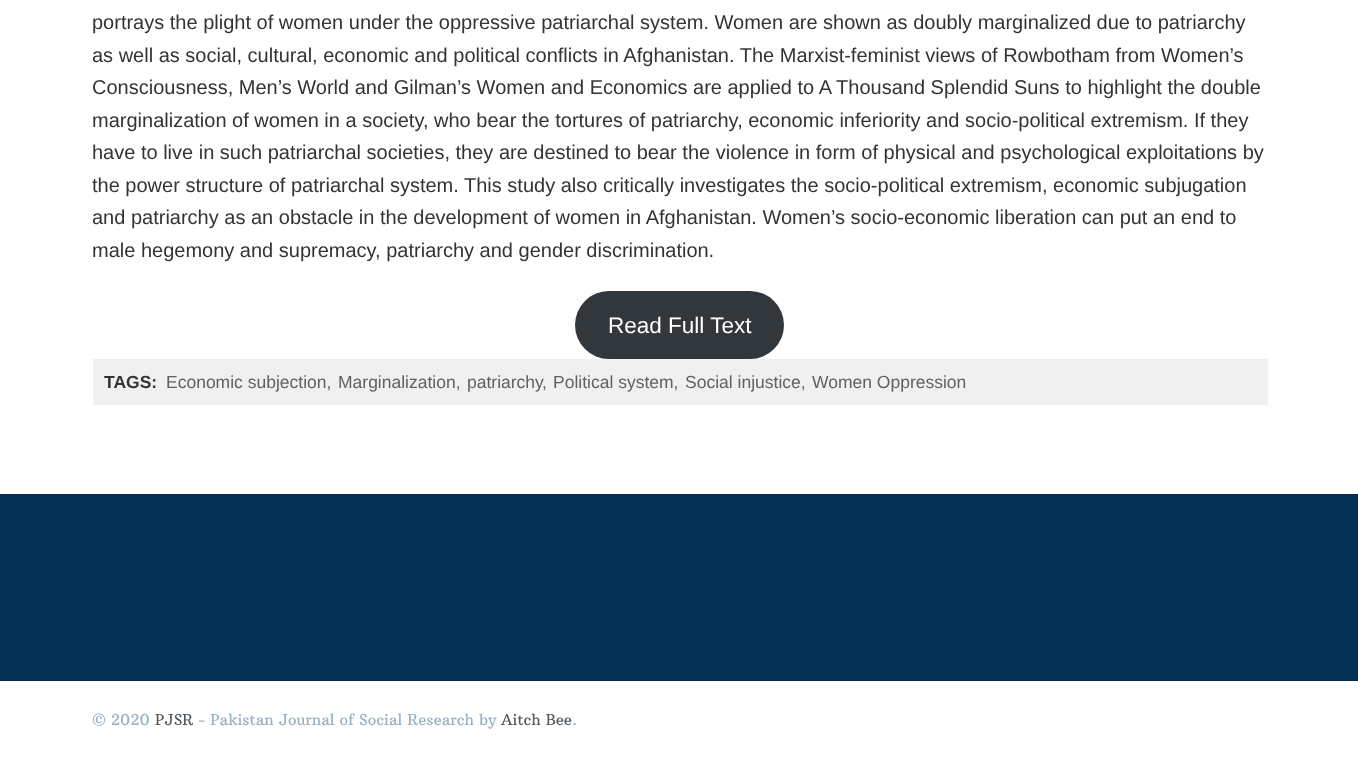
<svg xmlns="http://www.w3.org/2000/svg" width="1358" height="760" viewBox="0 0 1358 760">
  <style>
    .t1 { font: 20px Liberation Sans; fill: #333; }
    .t2 { font: 22.5px Liberation Sans; fill: #fff; }
    .t3 { font: bold 17.5px Liberation Sans; fill: #333; }
    .t4 { font: 17.5px Liberation Sans; fill: #616161; }
    .t5 { font: 15px Arbutus Slab; fill: #95b1c7; }
    .t6 { font: 15px Arbutus Slab; fill: #53585c; }
  </style>
  <rect width="100%" height="100%" fill="#fff"/>
  <text x="92" y="29" class="t1">portrays the plight of women under the oppressive patriarchal system. Women are shown as doubly marginalized due to patriarchy</text>
  <text x="92" y="62" class="t1">as well as social, cultural, economic and political conflicts in Afghanistan. The Marxist-feminist views of Rowbotham from Women’s</text>
  <text x="92" y="94" class="t1">Consciousness, Men’s World and Gilman’s Women and Economics are applied to A Thousand Splendid Suns to highlight the double</text>
  <text x="92" y="127" class="t1">marginalization of women in a society, who bear the tortures of patriarchy, economic inferiority and socio-political extremism. If they</text>
  <text x="92" y="159" class="t1">have to live in such patriarchal societies, they are destined to bear the violence in form of physical and psychological exploitations by</text>
  <text x="92" y="192" class="t1">the power structure of patriarchal system. This study also critically investigates the socio-political extremism, economic subjugation</text>
  <text x="92" y="224" class="t1">and patriarchy as an obstacle in the development of women in Afghanistan. Women’s socio-economic liberation can put an end to</text>
  <text x="92" y="257" class="t1">male hegemony and supremacy, patriarchy and gender discrimination.</text>
  <rect x="575" y="291" width="209" height="68" rx="34" fill="#32373c"/>
  <text x="608" y="333" class="t2">Read Full Text</text>
  <rect x="93" y="359" width="1175" height="46" fill="#f0f0f0"/>
  <text x="104" y="388" class="t3">TAGS:</text>
  <text x="166" y="388" class="t4">Economic subjection,</text>
  <text x="338" y="388" class="t4">Marginalization,</text>
  <text x="467" y="388" class="t4">patriarchy</text>
  <text x="542" y="388" class="t4">,</text>
  <text x="553" y="388" class="t4">Political system,</text>
  <text x="685" y="388" class="t4">Social injustice,</text>
  <text x="812" y="388" class="t4">Women Oppression</text>
  <rect x="0" y="494" width="1358" height="187" fill="#033054"/>
  <text x="92" y="725" class="t5">© 2020</text>
  <text x="155" y="725" class="t6">PJSR</text>
  <text x="198" y="725" class="t5">- Pakistan Journal of Social Research by</text>
  <text x="501" y="725" class="t6">Aitch Bee</text>
  <text x="572" y="725" class="t5">.</text>
</svg>
